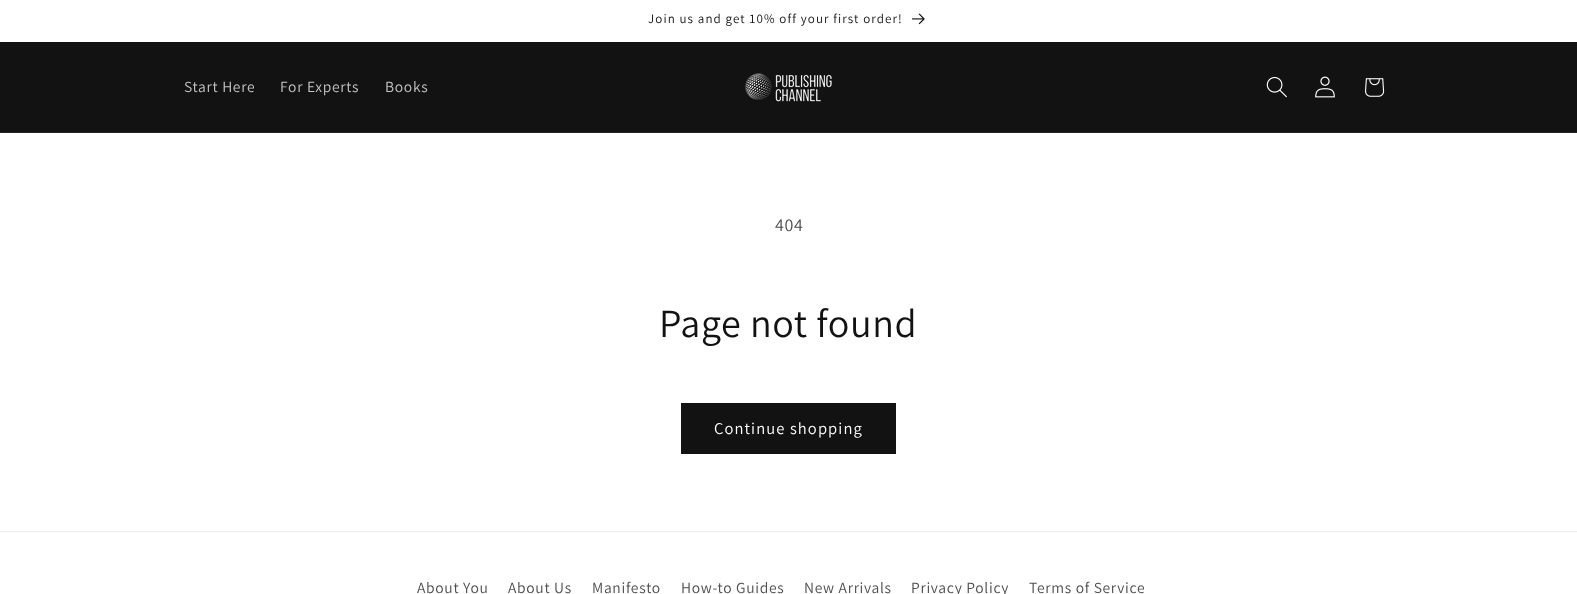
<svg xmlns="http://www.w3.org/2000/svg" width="1577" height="594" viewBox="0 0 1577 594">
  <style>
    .t1 { font: 13px Assistant; letter-spacing: 1.1px; fill: #121212; }
    .t2 { font: 15.5px Assistant; letter-spacing: 0.7px; fill: #c4c4c4; }
    .t3 { font: 18px Assistant; letter-spacing: 0.7px; fill: #4d4d4d; }
    .t4 { font: 40px Assistant; letter-spacing: 0.6px; fill: #121212; }
    .t5 { font: 16.5px Assistant; letter-spacing: 1.1px; fill: #fff; }
    .t6 { font: 15.5px Assistant; letter-spacing: 0.7px; fill: #4d4d4d; }
  </style>
  <rect width="100%" height="100%" fill="#fff"/>
  <text x="648" y="23" class="t1">Join us and get 10% off your first order!</text>
  <image x="912" y="13" width="13" height="12" href="images/1.png"/>
  <rect x="0" y="42" width="1577" height="90" fill="#121212"/>
  <rect x="0" y="132" width="1577" height="1" fill="#252525"/>
  <text x="184" y="92" class="t2">Start Here</text>
  <text x="280" y="92" class="t2">For Experts</text>
  <text x="385" y="92" class="t2">Books</text>
  <image x="745" y="73" width="87" height="29" href="images/2.png"/>
  <image x="1266" y="76" width="21" height="22" href="images/3.png"/>
  <image x="1315" y="76" width="20" height="22" href="images/4.png"/>
  <image x="1365" y="78" width="20" height="19" href="images/5.png"/>
  <text x="775" y="231" class="t3">404</text>
  <text x="659" y="337" class="t4">Page not found</text>
  <rect x="681" y="403" width="215" height="51" fill="#121212"/>
  <text x="714" y="434" class="t5">Continue shopping</text>
  <rect x="0" y="531" width="1577" height="1" fill="#ececec"/>
  <text x="417" y="593" class="t6">About You</text>
  <text x="508" y="593" class="t6">About Us</text>
  <text x="592" y="593" class="t6">Manifesto</text>
  <text x="681" y="593" class="t6">How-to Guides</text>
  <text x="804" y="593" class="t6">New Arrivals</text>
  <text x="911" y="593" class="t6">Privacy Policy</text>
  <text x="1029" y="593" class="t6">Terms of Service</text>
</svg>
